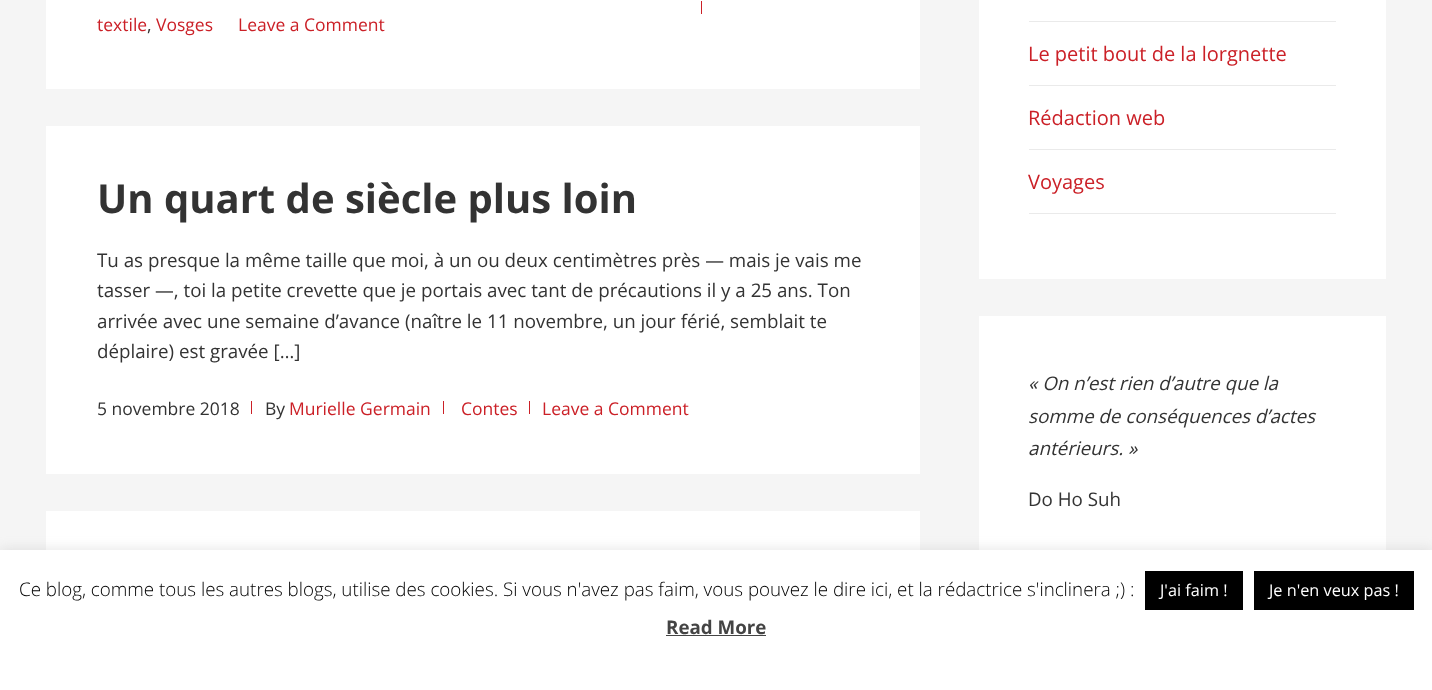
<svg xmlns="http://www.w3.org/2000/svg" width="1432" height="690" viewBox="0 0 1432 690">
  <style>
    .t1 { font: 17.5px Open Sans; fill: #cb2027; }
    .t2 { font: 17.5px Open Sans; fill: #333; }
    .t3 { font: bold 40px Open Sans; fill: #333; }
    .t4 { font: 18.75px Open Sans; fill: #333; }
    .t5 { font: 20px Open Sans; fill: #cb2027; }
    .t6 { font: italic 18.75px Open Sans; fill: #333; }
    .t7 { font: 300 18.75px Open Sans; fill: #000; }
    .t8 { font: 16.25px Open Sans; fill: #fff; }
    .t9 { font: bold 18.75px Open Sans; fill: #444; }
  </style>
  <rect width="100%" height="100%" fill="#f5f5f5"/>
  <rect x="46" y="0" width="874" height="89" fill="#fff"/>
  <rect x="701" y="1" width="1" height="13" fill="#cb2027"/>
  <text x="97" y="31" class="t1">textile</text>
  <text x="147" y="31" class="t2">,</text>
  <text x="156" y="31" class="t1">Vosges</text>
  <text x="238" y="31" class="t1">Leave a Comment</text>
  <rect x="46" y="126" width="874" height="348" fill="#fff"/>
  <text x="97" y="213" class="t3">Un quart de siècle plus loin</text>
  <text x="97" y="267" class="t4">Tu as presque la même taille que moi, à un ou deux centimètres près — mais je vais me</text>
  <text x="97" y="297" class="t4">tasser —, toi la petite crevette que je portais avec tant de précautions il y a 25 ans. Ton</text>
  <text x="97" y="328" class="t4">arrivée avec une semaine d’avance (naître le 11 novembre, un jour férié, semblait te</text>
  <text x="97" y="358" class="t4">déplaire) est gravée […]</text>
  <text x="97" y="415" class="t2">5 novembre 2018</text>
  <rect x="251" y="401" width="1" height="13" fill="#cb2027"/>
  <text x="265" y="415" class="t2">By</text>
  <text x="289" y="415" class="t1">Murielle Germain</text>
  <rect x="443" y="401" width="1" height="13" fill="#cb2027"/>
  <text x="461" y="415" class="t1">Contes</text>
  <rect x="529" y="401" width="1" height="13" fill="#cb2027"/>
  <text x="542" y="415" class="t1">Leave a Comment</text>
  <rect x="46" y="511" width="874" height="39" fill="#fff"/>
  <rect x="979" y="0" width="407" height="279" fill="#fff"/>
  <rect x="1029" y="21" width="307" height="1" fill="#eaeaea"/>
  <rect x="1029" y="85" width="307" height="1" fill="#eaeaea"/>
  <text x="1028" y="61" class="t5">Le petit bout de la lorgnette</text>
  <rect x="1029" y="149" width="307" height="1" fill="#eaeaea"/>
  <text x="1028" y="125" class="t5">Rédaction web</text>
  <rect x="1029" y="213" width="307" height="1" fill="#eaeaea"/>
  <text x="1028" y="189" class="t5">Voyages</text>
  <rect x="979" y="316" width="407" height="234" fill="#fff"/>
  <text x="1028" y="390" class="t6">« On n’est rien d’autre que la</text>
  <text x="1028" y="423" class="t6">somme de conséquences d’actes</text>
  <text x="1028" y="455" class="t6">antérieurs. »</text>
  <text x="1028" y="506" class="t4">Do Ho Suh</text>
  <rect x="0" y="549" width="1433" height="140" fill="#acabab4d" filter="blur(6px)"/>
  <rect x="0" y="550" width="1432" height="140" fill="#fff"/>
  <text x="19" y="596" class="t7">Ce blog, comme tous les autres blogs, utilise des cookies. Si vous n'avez pas faim, vous pouvez le dire ici, et la rédactrice s'inclinera ;) :</text>
  <rect x="1145" y="571" width="98" height="39" fill="#000"/>
  <text x="1160" y="596" class="t8">J'ai faim !</text>
  <rect x="1254" y="571" width="160" height="39" fill="#000"/>
  <text x="1269" y="596" class="t8">Je n'en veux pas !</text>
  <text x="666" y="634" class="t9">Read More</text>
  <rect x="666" y="635" width="100" height="1" fill="#444"/>
</svg>
